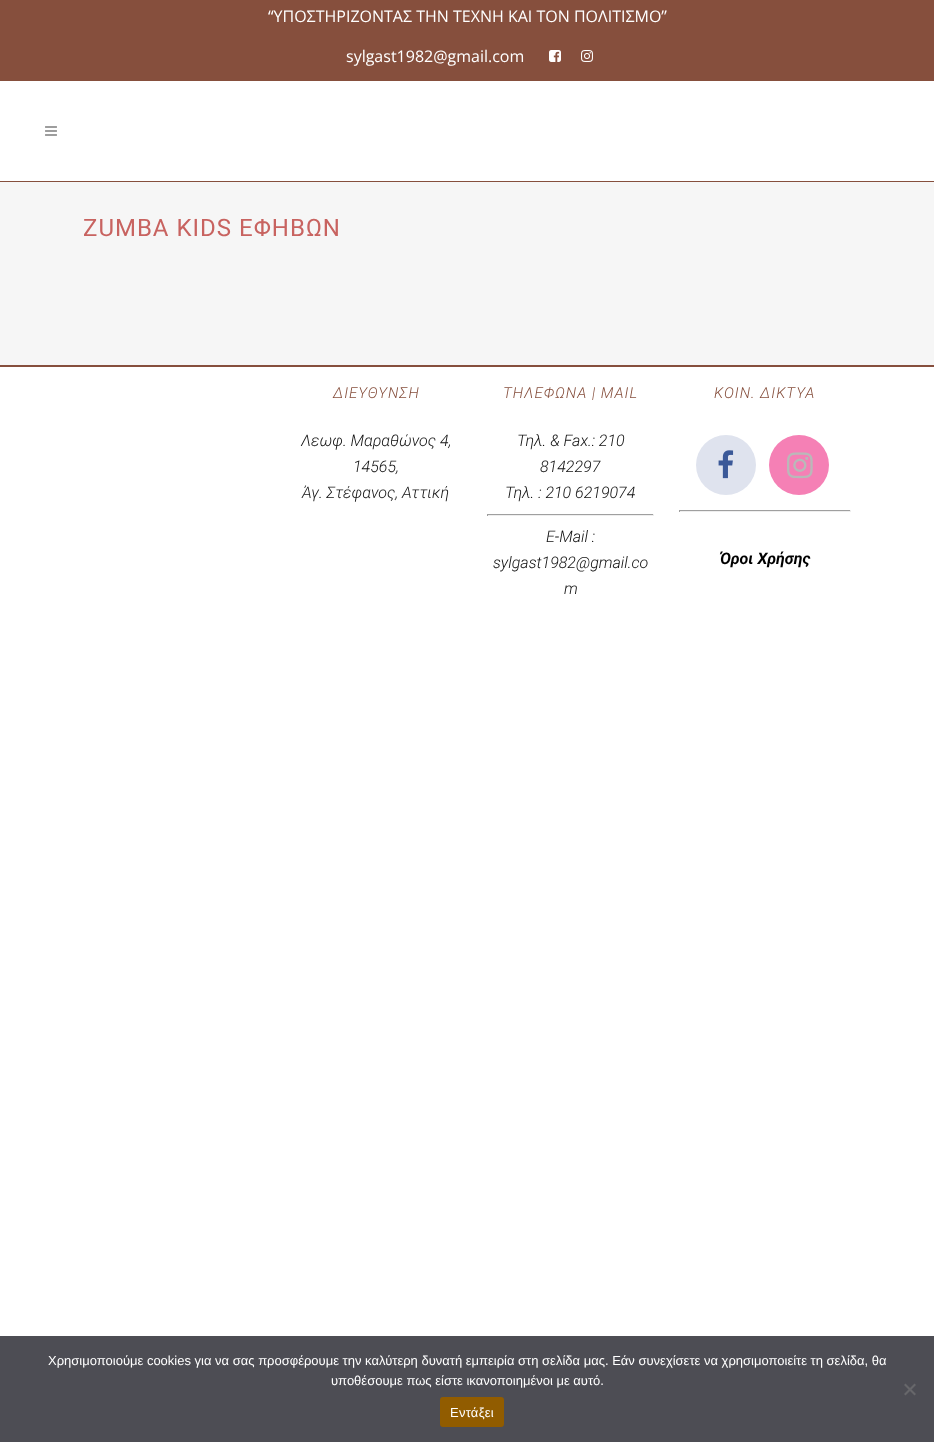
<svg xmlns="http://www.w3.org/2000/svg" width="934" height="1442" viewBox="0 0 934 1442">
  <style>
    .t1 { font: 16px Open Sans; fill: #fff; }
    .t2 { font: 24px Roboto; letter-spacing: 1px; fill: #c86360; }
    .t3 { font: italic 300 15px Roboto; letter-spacing: 1px; fill: #864f3d; }
    .t4 { font: italic 300 16px Roboto; fill: #111; }
    .t5 { font: italic bold 16px Roboto; fill: #000; }
    .t6 { font: 13px Liberation Sans; fill: #fff; }
    .t7 { font: 13px Liberation Sans; letter-spacing: 0.25px; fill: #fff; }
  </style>
  <rect width="100%" height="100%" fill="#f6f6f6"/>
  <rect x="0" y="0" width="934" height="81" fill="#864f3d"/>
  <text x="268" y="22" class="t1">“ΥΠΟΣΤΗΡΙΖΟΝΤΑΣ ΤΗΝ ΤΕΧΝΗ ΚΑΙ ΤΟΝ ΠΟΛΙΤΙΣΜΟ”</text>
  <text x="346" y="62" class="t1">sylgast1982@gmail.com</text>
  <image x="549" y="50" width="12" height="12" href="images/1.png"/>
  <image x="581" y="50" width="12" height="12" href="images/2.png"/>
  <rect x="0" y="81" width="934" height="100" fill="#fff"/>
  <rect x="0" y="181" width="934" height="1" fill="#864f3d"/>
  <image x="45" y="126" width="12" height="10" href="images/3.png"/>
  <text x="83" y="236" class="t2">ZUMBA KIDS ΕΦΗΒΩΝ</text>
  <rect x="0" y="367" width="934" height="969" fill="#fff"/>
  <rect x="0" y="365" width="934" height="2" fill="#864f3d"/>
  <text x="333" y="398" class="t3">ΔΙΕΥΘΥΝΣΗ</text>
  <text x="301" y="446" class="t4">Λεωφ. Μαραθώνος 4,</text>
  <text x="353" y="472" class="t4">14565,</text>
  <text x="302" y="498" class="t4">Άγ. Στέφανος, Αττική</text>
  <text x="503" y="398" class="t3">ΤΗΛΕΦΩΝΑ | MAIL</text>
  <text x="517" y="446" class="t4">Τηλ. &amp; Fax.: 210</text>
  <text x="540" y="472" class="t4">8142297</text>
  <text x="505" y="498" class="t4">Τηλ. : 210 6219074</text>
  <rect x="487" y="514" width="167" height="1" fill="#9f9f9f"/>
  <rect x="653" y="514" width="1" height="2" fill="#eee"/>
  <rect x="487" y="515" width="167" height="1" fill="#eee"/>
  <rect x="487" y="514" width="1" height="2" fill="#9f9f9f"/>
  <text x="546" y="542" class="t4">E-Mail :</text>
  <text x="493" y="568" class="t4">sylgast1982@gmail.co</text>
  <text x="564" y="594" class="t4">m</text>
  <text x="714" y="398" class="t3">ΚΟΙΝ. ΔΙΚΤΥΑ</text>
  <circle cx="726" cy="465" r="30" fill="#dfe3ee"/>
  <image x="718" y="450" width="16" height="29" href="images/4.png"/>
  <circle cx="799" cy="465" r="30" fill="#f580b5"/>
  <image x="787" y="452" width="26" height="27" href="images/5.png"/>
  <rect x="679" y="510" width="172" height="1" fill="#9f9f9f"/>
  <rect x="850" y="510" width="1" height="2" fill="#eee"/>
  <rect x="679" y="511" width="172" height="1" fill="#eee"/>
  <rect x="679" y="510" width="1" height="2" fill="#9f9f9f"/>
  <text x="720" y="564" class="t5">Όροι Χρήσης</text>
  <rect x="0" y="1336" width="934" height="106" fill="#4d4d54"/>
  <text x="48" y="1365" class="t6">Χρησιμοποιούμε cookies για να σας προσφέρουμε την καλύτερη δυνατή εμπειρία στη σελίδα μας. Εάν συνεχίσετε να χρησιμοποιείτε τη σελίδα, θα</text>
  <text x="331" y="1385" class="t6">υποθέσουμε πως είστε ικανοποιημένοι με αυτό.</text>
  <path d="M914.5 1383.5L916 1385L905.5 1395.5L904 1394Z" fill="#67676a"/>
  <path d="M904 1385L905.5 1383.5L916 1394L914.5 1395.5Z" fill="#67676a"/>
  <rect x="440" y="1397" width="64" height="30" rx="3" fill="#915c00"/>
  <text x="450" y="1417" class="t7">Εντάξει</text>
</svg>
